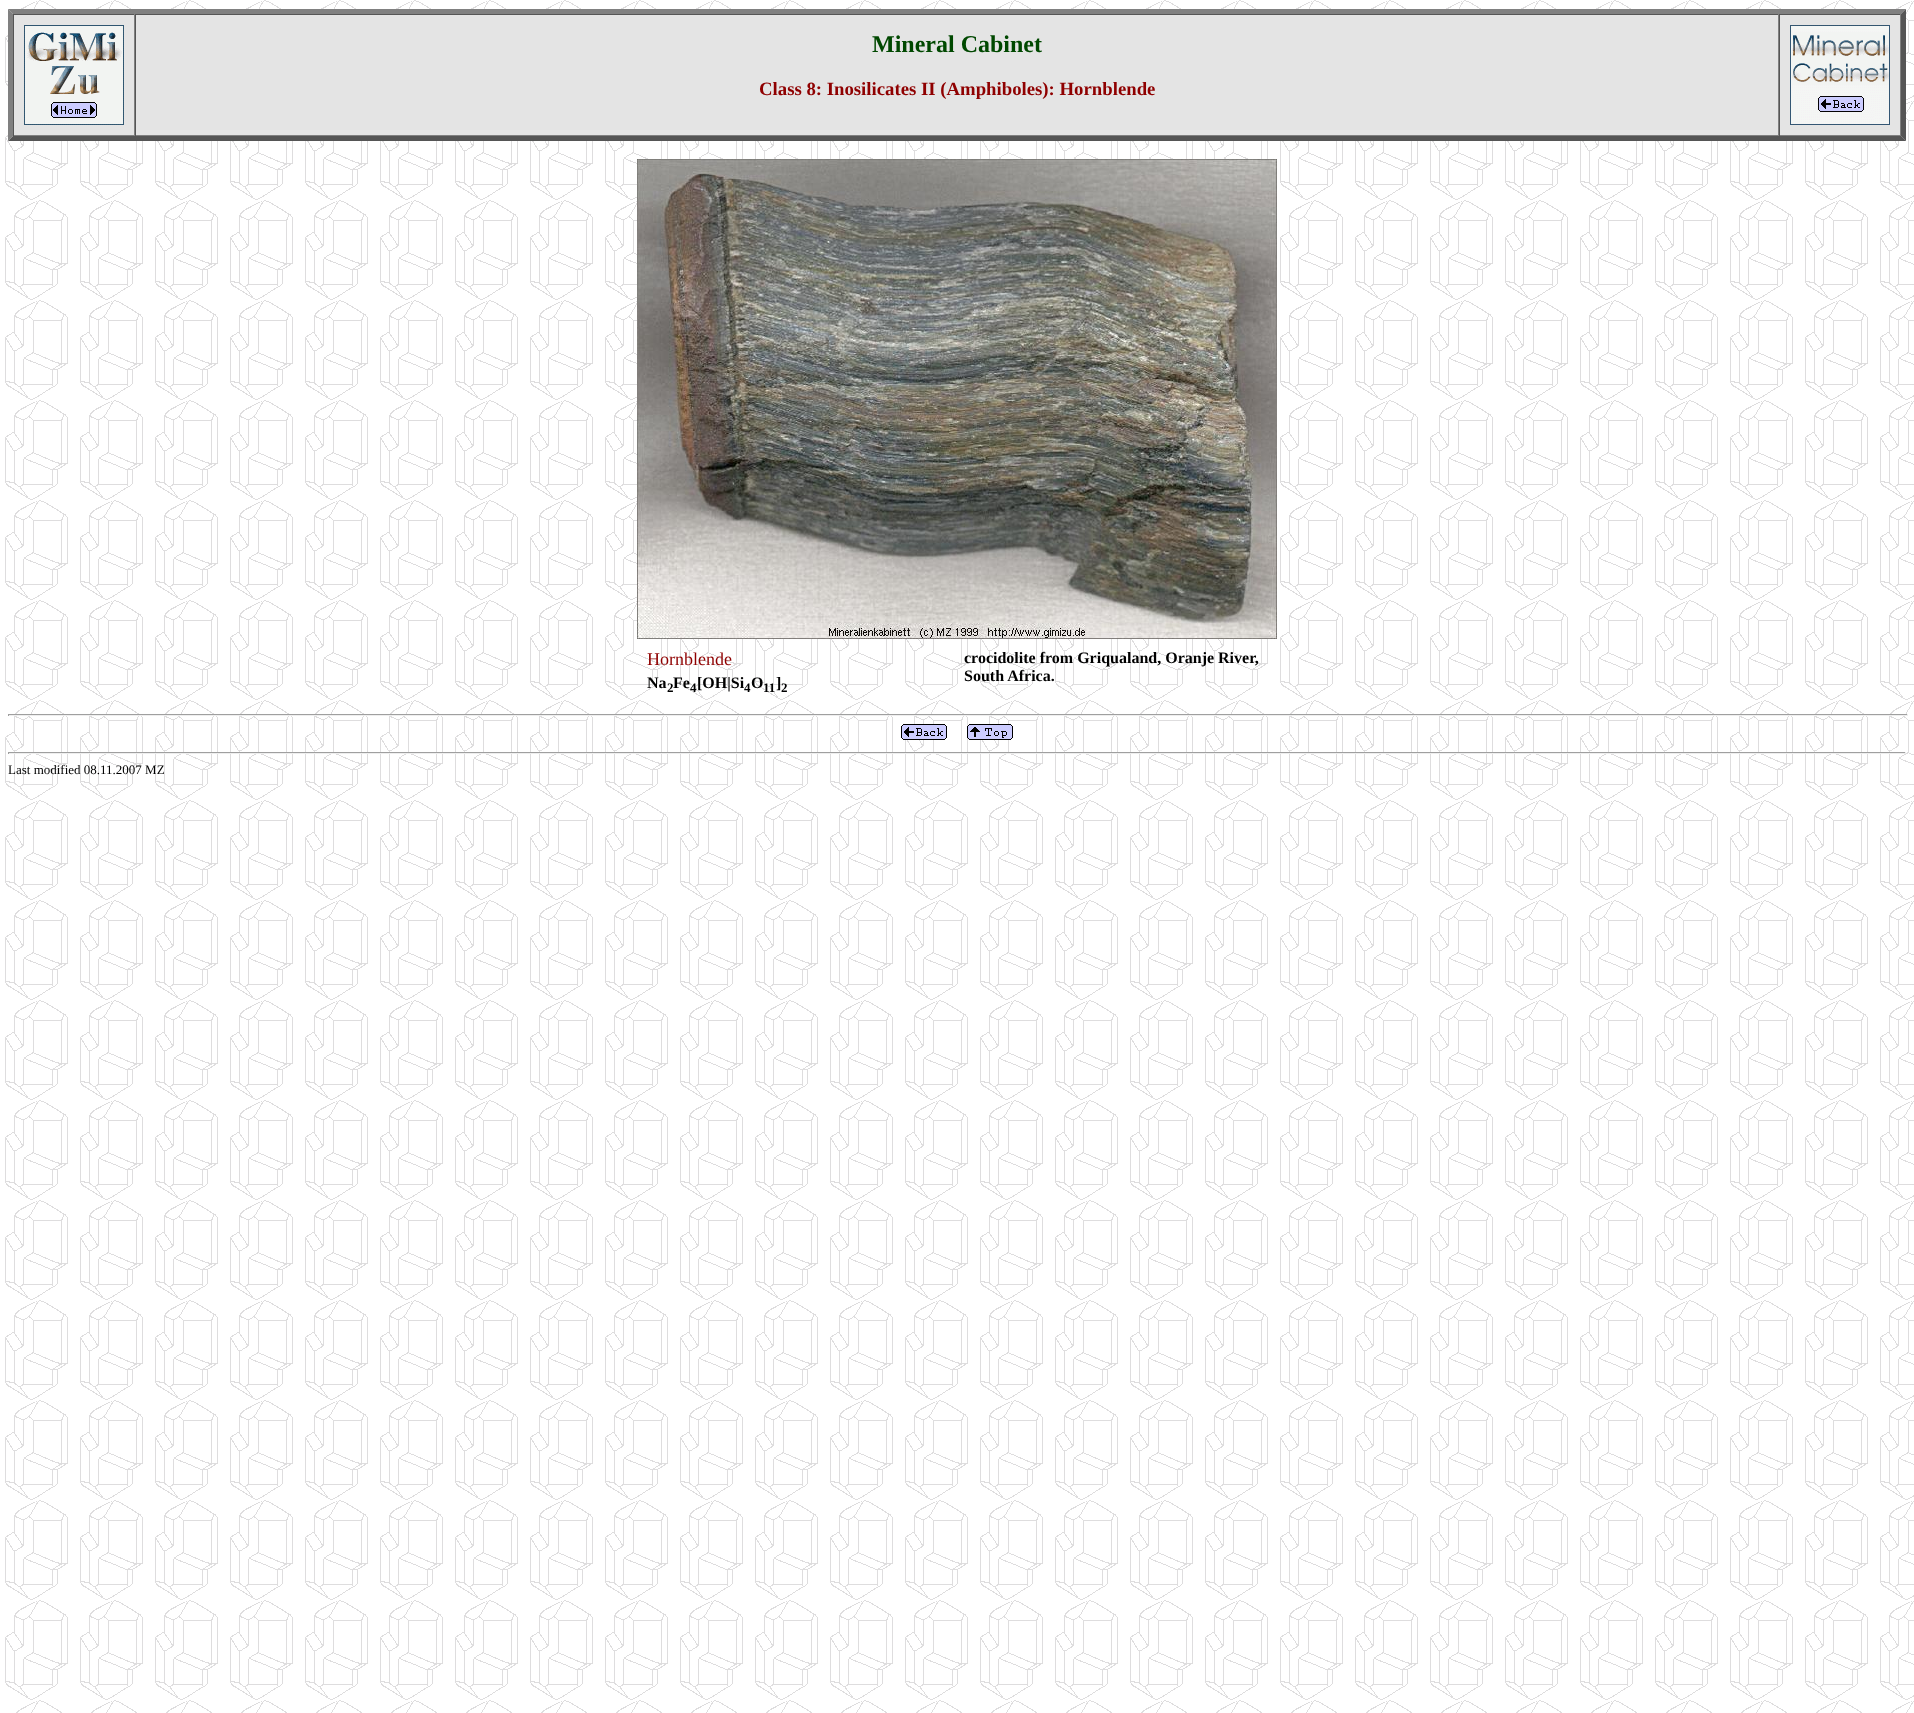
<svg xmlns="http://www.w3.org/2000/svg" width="1914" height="1713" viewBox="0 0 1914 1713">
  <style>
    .t1 { font: bold 24px Liberation Serif; fill: #004800; }
    .t2 { font: bold 18.75px Liberation Serif; fill: #8f0000; }
    .t3 { font: 18px Liberation Serif; fill: #8f0000; }
    .t4 { font: bold 16px Liberation Serif; fill: #000; }
    .t5 { font: bold 13px Liberation Serif; fill: #000; }
    .t6 { font: 13px Liberation Serif; fill: #000; }
  </style>
  <rect width="100%" height="100%" fill="#fff"/>
  <image x="0" y="0" width="1914" height="1713" href="images/1.png"/>
  <rect x="8" y="9" width="1898" height="132" fill="#e4e4e4"/>
  <path d="M8 9H1906L1901 14H13Z" fill="#808080"/>
  <path d="M1906 9V141L1901 136V14Z" fill="#555"/>
  <path d="M1906 141H8L13 136H1901Z" fill="#555"/>
  <path d="M8 141V9L13 14V136Z" fill="#808080"/>
  <rect x="13" y="14" width="1888" height="1" fill="#555"/>
  <rect x="134" y="14" width="1" height="122" fill="#808080"/>
  <rect x="13" y="135" width="122" height="1" fill="#808080"/>
  <rect x="13" y="14" width="1" height="122" fill="#555"/>
  <image x="24" y="25" width="100" height="100" href="images/2.png"/>
  <rect x="1778" y="14" width="1" height="122" fill="#808080"/>
  <rect x="135" y="135" width="1644" height="1" fill="#808080"/>
  <rect x="135" y="14" width="1" height="122" fill="#555"/>
  <text x="872" y="52" class="t1">Mineral Cabinet</text>
  <text x="759" y="95" class="t2">Class 8: Inosilicates II (Amphiboles): Hornblende</text>
  <rect x="1900" y="14" width="1" height="122" fill="#808080"/>
  <rect x="1779" y="135" width="122" height="1" fill="#808080"/>
  <rect x="1779" y="14" width="1" height="122" fill="#555"/>
  <image x="1790" y="25" width="100" height="100" href="images/3.png"/>
  <image x="637" y="159" width="640" height="480" href="images/4.png"/>
  <text x="647" y="665" class="t3">Hornblende</text>
  <text x="647" y="688" class="t4">Na</text>
  <text x="667" y="692" class="t5">2</text>
  <text x="673" y="688" class="t4">Fe</text>
  <text x="690" y="692" class="t5">4</text>
  <text x="697" y="688" class="t4">[OH|Si</text>
  <text x="744" y="692" class="t5">4</text>
  <text x="751" y="688" class="t4">O</text>
  <text x="763" y="692" class="t5">11</text>
  <text x="776" y="688" class="t4">]</text>
  <text x="781" y="692" class="t5">2</text>
  <text x="964" y="663" class="t4">crocidolite from Griqualand, Oranje River,</text>
  <text x="964" y="681" class="t4">South Africa.</text>
  <rect x="8" y="714" width="1900" height="1" fill="#9f9f9f"/>
  <rect x="1907" y="714" width="1" height="2" fill="#eee"/>
  <rect x="8" y="715" width="1900" height="1" fill="#eee"/>
  <rect x="8" y="714" width="1" height="2" fill="#9f9f9f"/>
  <image x="901" y="724" width="46" height="16" href="images/5.png"/>
  <image x="967" y="724" width="46" height="16" href="images/6.png"/>
  <rect x="8" y="752" width="1898" height="1" fill="#9f9f9f"/>
  <rect x="1905" y="752" width="1" height="2" fill="#eee"/>
  <rect x="8" y="753" width="1898" height="1" fill="#eee"/>
  <rect x="8" y="752" width="1" height="2" fill="#9f9f9f"/>
  <text x="8" y="774" class="t6">Last modified 08.11.2007 MZ</text>
</svg>
